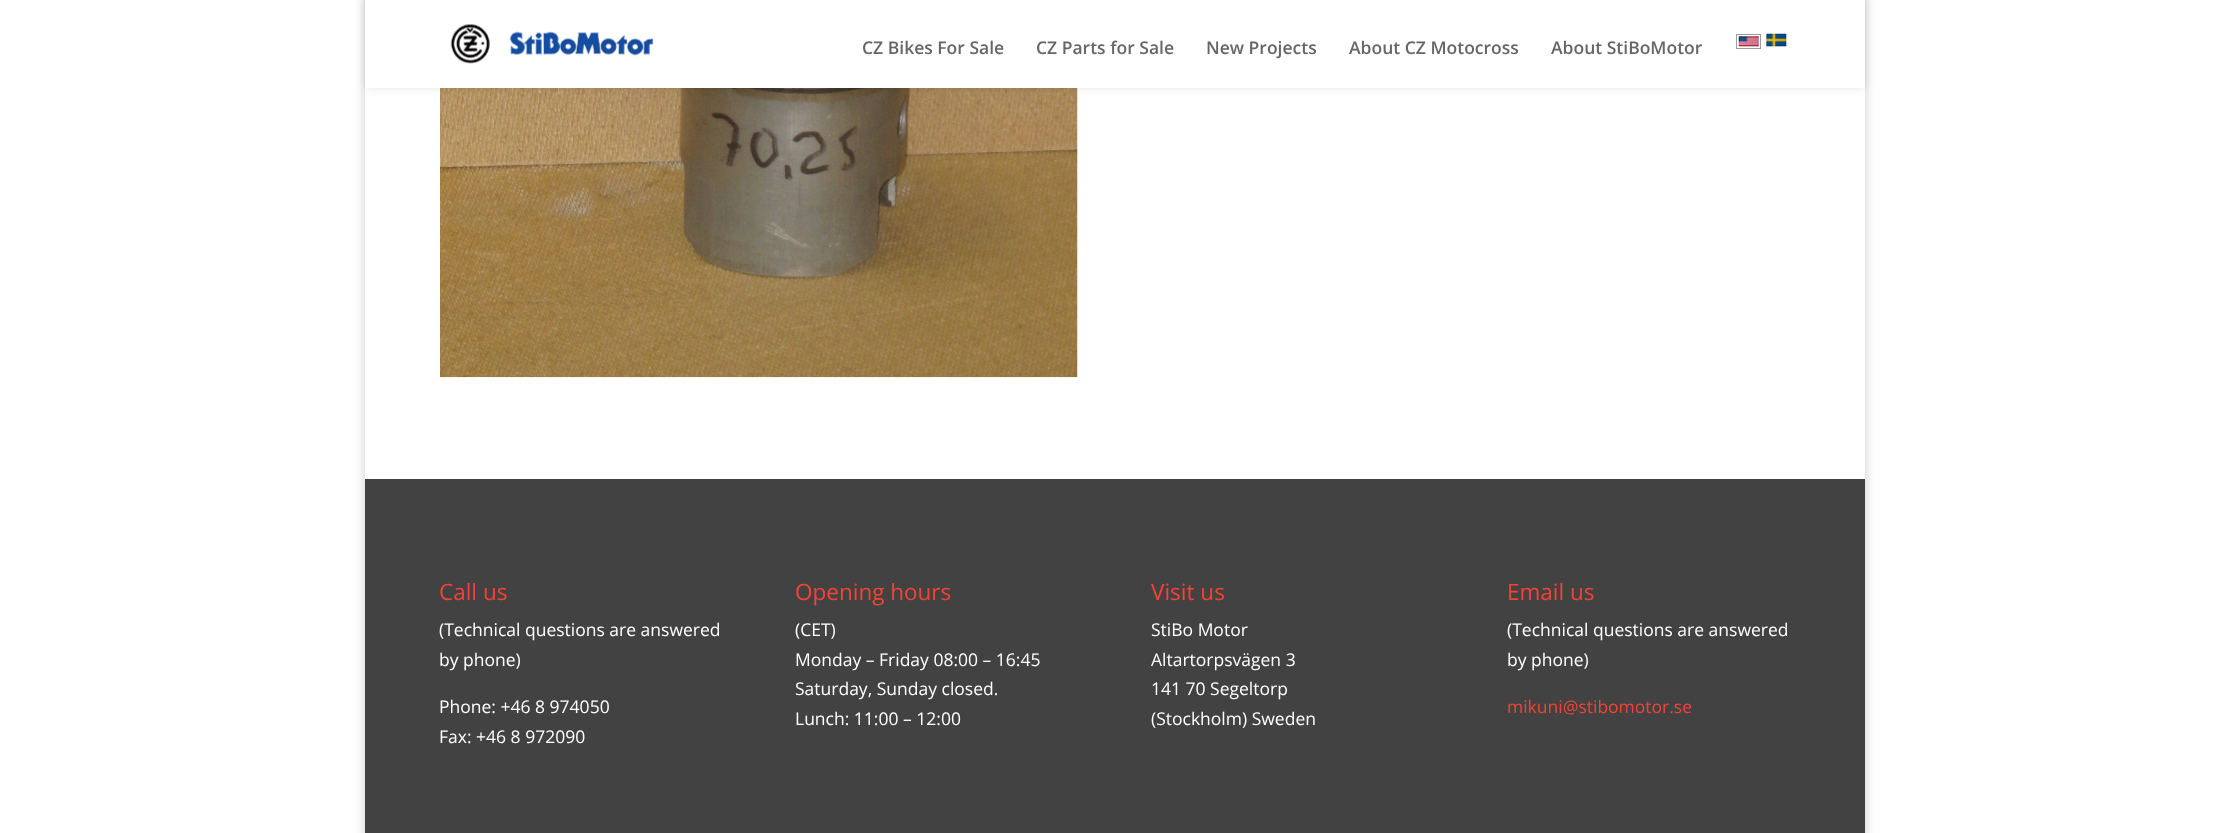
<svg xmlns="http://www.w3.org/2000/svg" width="2228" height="833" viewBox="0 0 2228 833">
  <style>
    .t1 { font: 600 17.5px Open Sans; fill: #666; }
    .t2 { font: 22.5px Open Sans; fill: #f44336; }
    .t3 { font: 17.5px Open Sans; fill: #fff; }
    .t4 { font: 17.5px Open Sans; fill: #f44336; }
  </style>
  <defs>
    <clipPath id="clip1"><path d="M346 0H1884V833H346ZM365-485H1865V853H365Z" clip-rule="evenodd"/></clipPath>
  </defs>
  <rect width="100%" height="100%" fill="#fff"/>
  <g clip-path="url(#clip1)">
    <rect x="365" y="-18" width="1500" height="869" fill="#00000033" filter="blur(6px)"/>
  </g>
  <image x="440" y="88" width="638" height="290" href="images/4.png"/>
  <rect x="365" y="0" width="1500" height="88" fill="#0000001a" filter="blur(4.5px)"/>
  <rect x="365" y="0" width="1500" height="88" fill="#fff"/>
  <image x="450" y="24" width="204" height="40" href="images/1.png"/>
  <text x="862" y="54" class="t1">CZ Bikes For Sale</text>
  <text x="1036" y="54" class="t1">CZ Parts for Sale</text>
  <text x="1206" y="54" class="t1">New Projects</text>
  <text x="1349" y="54" class="t1">About CZ Motocross</text>
  <text x="1551" y="54" class="t1">About StiBoMotor</text>
  <rect x="1736.5" y="34.5" width="24" height="14" fill="none" stroke="#9c9c9c"/>
  <image x="1738" y="36" width="21" height="11" href="images/2.png"/>
  <image x="1766" y="33" width="21" height="14" href="images/3.png"/>
  <rect x="365" y="479" width="1500" height="354" fill="#424242"/>
  <text x="439" y="600" class="t2">Call us</text>
  <text x="439" y="636" class="t3">(Technical questions are answered</text>
  <text x="439" y="666" class="t3">by phone)</text>
  <text x="439" y="713" class="t3">Phone: +46 8 974050</text>
  <text x="439" y="743" class="t3">Fax: +46 8 972090</text>
  <text x="795" y="600" class="t2">Opening hours</text>
  <text x="795" y="636" class="t3">(CET)</text>
  <text x="795" y="666" class="t3">Monday – Friday 08:00 – 16:45</text>
  <text x="795" y="695" class="t3">Saturday, Sunday closed.</text>
  <text x="795" y="725" class="t3">Lunch: 11:00 – 12:00</text>
  <text x="1151" y="600" class="t2">Visit us</text>
  <text x="1151" y="636" class="t3">StiBo Motor</text>
  <text x="1151" y="666" class="t3">Altartorpsvägen 3</text>
  <text x="1151" y="695" class="t3">141 70 Segeltorp</text>
  <text x="1151" y="725" class="t3">(Stockholm) Sweden</text>
  <text x="1507" y="600" class="t2">Email us</text>
  <text x="1507" y="636" class="t3">(Technical questions are answered</text>
  <text x="1507" y="666" class="t3">by phone)</text>
  <text x="1507" y="713" class="t4">mikuni@stibomotor.se</text>
</svg>
